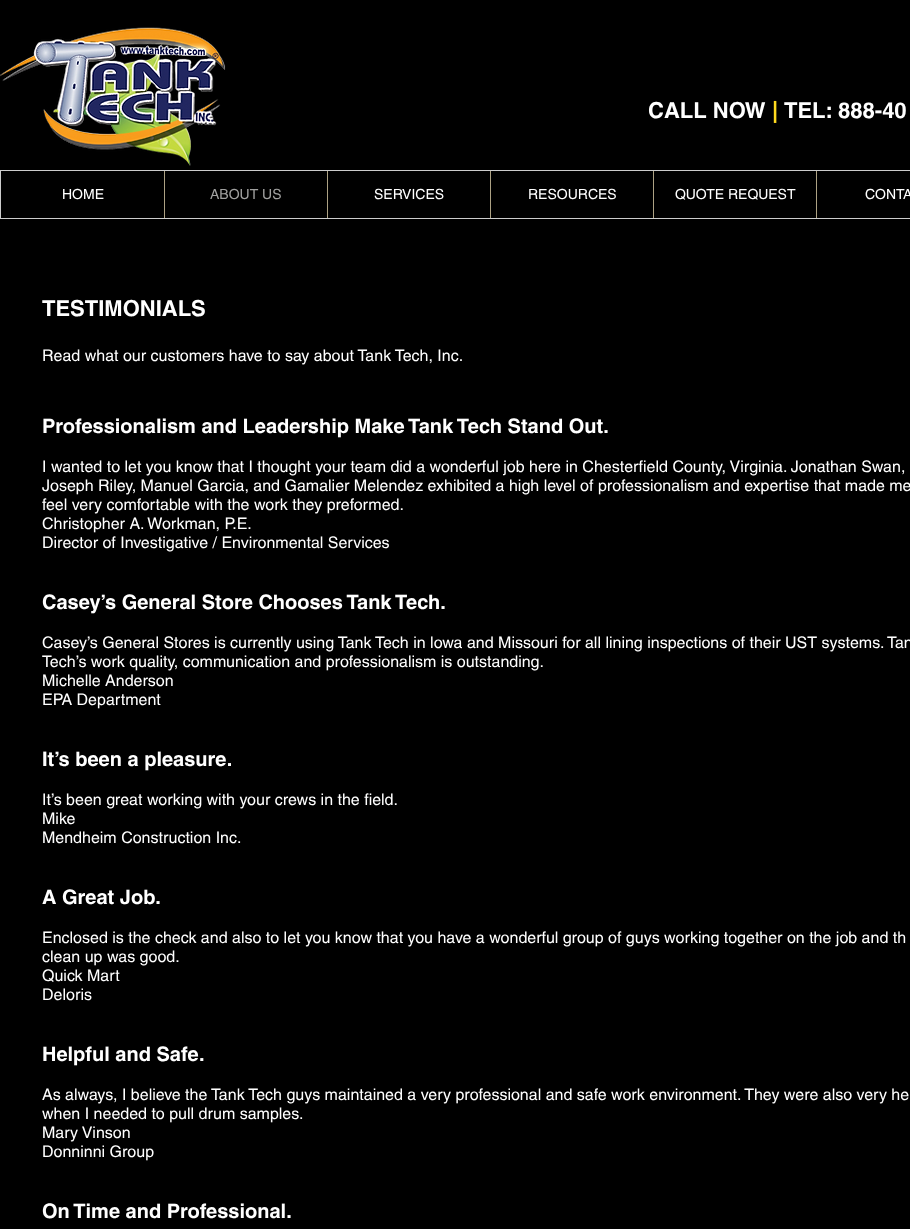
<svg xmlns="http://www.w3.org/2000/svg" width="910" height="1229" viewBox="0 0 910 1229">
  <style>
    .t1 { font: bold 22px helvetica; fill: #fff; }
    .t2 { font: bold 22px helvetica; fill: #ffda1f; }
    .t3 { font: 14px helvetica; fill: #fff; }
    .t4 { font: 14px helvetica; fill: #a0a09f; }
    .t5 { font: 16px helvetica; fill: #fff; }
    .t6 { font: bold 20px helvetica; fill: #fff; }
  </style>
  <rect width="100%" height="100%" fill="#000"/>
  <text x="648" y="118" class="t1">CALL NOW</text>
  <text x="772" y="118" class="t2">|</text>
  <text x="784" y="118" class="t1">TEL: 888-40</text>
  <rect x="0.5" y="170.5" width="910" height="48" fill="none" stroke="#ccc"/>
  <text x="62" y="199" class="t3">HOME</text>
  <rect x="164" y="171" width="1" height="47" fill="#ada284"/>
  <text x="210" y="199" class="t4">ABOUT US</text>
  <rect x="327" y="171" width="1" height="47" fill="#ada284"/>
  <text x="374" y="199" class="t3">SERVICES</text>
  <rect x="490" y="171" width="1" height="47" fill="#ada284"/>
  <text x="528" y="199" class="t3">RESOURCES</text>
  <rect x="653" y="171" width="1" height="47" fill="#ada284"/>
  <text x="675" y="199" class="t3">QUOTE REQUEST</text>
  <rect x="816" y="171" width="1" height="47" fill="#ada284"/>
  <text x="865" y="199" class="t3">CONTA</text>
  <image x="0" y="27" width="226" height="139" href="images/1.png"/>
  <text x="42" y="316" class="t1">TESTIMONIALS</text>
  <text x="42" y="361" class="t5">Read what our customers have to say about Tank Tech, Inc.</text>
  <text x="42" y="433" class="t6">Professionalism and Leadership Make Tank Tech Stand Out.</text>
  <text x="42" y="472" class="t5">I wanted to let you know that I thought your team did a wonderful job here in Chesterfield County, Virginia. Jonathan Swan,</text>
  <text x="42" y="491" class="t5">Joseph Riley, Manuel Garcia, and Gamalier Melendez exhibited a high level of professionalism and expertise that made me</text>
  <text x="42" y="510" class="t5">feel very comfortable with the work they preformed.</text>
  <text x="42" y="529" class="t5">Christopher A. Workman, P.E.</text>
  <text x="42" y="548" class="t5">Director of Investigative / Environmental Services</text>
  <text x="42" y="609" class="t6">Casey’s General Store Chooses Tank Tech.</text>
  <text x="42" y="648" class="t5">Casey’s General Stores is currently using Tank Tech in lowa and Missouri for all lining inspections of their UST systems. Tan</text>
  <text x="42" y="667" class="t5">Tech’s work quality, communication and professionalism is outstanding.</text>
  <text x="42" y="686" class="t5">Michelle Anderson</text>
  <text x="42" y="705" class="t5">EPA Department</text>
  <text x="42" y="766" class="t6">It’s been a pleasure.</text>
  <text x="42" y="805" class="t5">It’s been great working with your crews in the field.</text>
  <text x="42" y="824" class="t5">Mike</text>
  <text x="42" y="843" class="t5">Mendheim Construction Inc.</text>
  <text x="42" y="904" class="t6">A Great Job.</text>
  <text x="42" y="943" class="t5">Enclosed is the check and also to let you know that you have a wonderful group of guys working together on the job and th</text>
  <text x="42" y="962" class="t5">clean up was good.</text>
  <text x="42" y="981" class="t5">Quick Mart</text>
  <text x="42" y="1000" class="t5">Deloris</text>
  <text x="42" y="1061" class="t6">Helpful and Safe.</text>
  <text x="42" y="1100" class="t5">As always, I believe the Tank Tech guys maintained a very professional and safe work environment. They were also very he</text>
  <text x="42" y="1119" class="t5">when I needed to pull drum samples.</text>
  <text x="42" y="1138" class="t5">Mary Vinson</text>
  <text x="42" y="1157" class="t5">Donninni Group</text>
  <text x="42" y="1218" class="t6">On Time and Professional.</text>
</svg>
